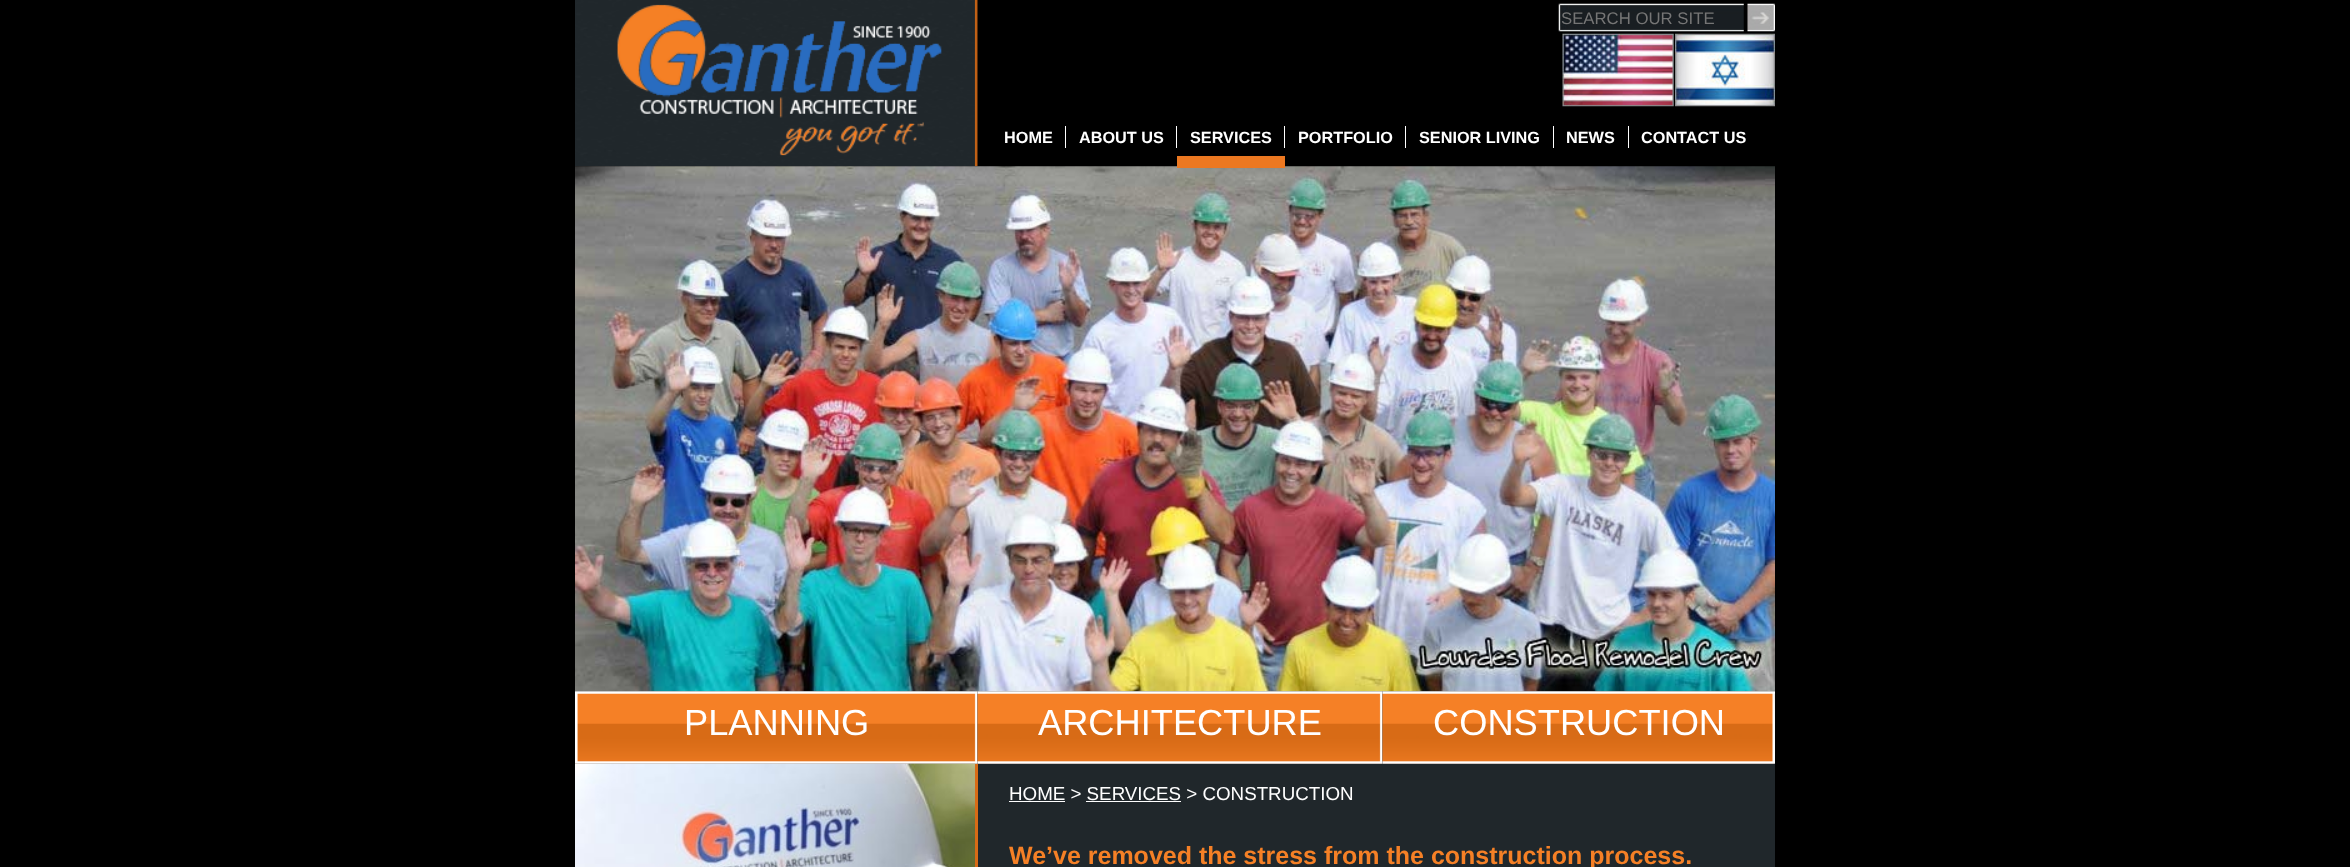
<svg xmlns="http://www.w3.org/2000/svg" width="2350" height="867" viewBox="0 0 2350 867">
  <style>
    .t1 { font: 16.75px Liberation Sans; fill: #757575; }
    .t2 { font: bold 16.25px Liberation Sans; fill: #fff; }
    .t3 { font: 36.25px Liberation Sans; fill: #fff; }
    .t4 { font: 18.75px Liberation Sans; fill: #fff; }
    .t5 { font: bold 25px Liberation Sans; fill: #f58026; }
  </style>
  <rect width="100%" height="100%" fill="#000"/>
  <image x="575" y="0" width="403" height="167" href="images/1.png"/>
  <image x="1558" y="3" width="186" height="29" href="images/2.png"/>
  <text x="1561" y="24" class="t1">SEARCH OUR SITE</text>
  <image x="1747" y="3" width="28" height="29" href="images/3.png"/>
  <image x="1562" y="33" width="112" height="74" href="images/4.png"/>
  <image x="1675" y="33" width="100" height="74" href="images/5.png"/>
  <rect x="1065" y="126" width="1" height="22" fill="#fff"/>
  <text x="1004" y="143" class="t2">HOME</text>
  <rect x="1176" y="126" width="1" height="22" fill="#fff"/>
  <text x="1079" y="143" class="t2">ABOUT US</text>
  <image x="575" y="166" width="1200" height="526" href="images/6.png"/>
  <rect x="1177" y="156" width="108" height="12" fill="#ec7821"/>
  <rect x="1284" y="126" width="1" height="22" fill="#fff"/>
  <text x="1190" y="143" class="t2">SERVICES</text>
  <rect x="1405" y="126" width="1" height="22" fill="#fff"/>
  <text x="1298" y="143" class="t2">PORTFOLIO</text>
  <rect x="1553" y="126" width="1" height="22" fill="#fff"/>
  <text x="1419" y="143" class="t2">SENIOR LIVING</text>
  <rect x="1628" y="126" width="1" height="22" fill="#fff"/>
  <text x="1566" y="143" class="t2">NEWS</text>
  <text x="1641" y="143" class="t2">CONTACT US</text>
  <image x="575" y="691" width="403" height="73" href="images/7.png"/>
  <text x="684" y="735" class="t3">PLANNING</text>
  <image x="977" y="691" width="406" height="73" href="images/8.png"/>
  <text x="1038" y="735" class="t3">ARCHITECTURE</text>
  <image x="1382" y="691" width="393" height="73" href="images/9.png"/>
  <text x="1433" y="735" class="t3">CONSTRUCTION</text>
  <image x="575" y="763" width="400" height="104" href="images/10.png"/>
  <rect x="978" y="764" width="797" height="103" fill="#20272b"/>
  <rect x="975" y="764" width="3" height="103" fill="#d86b16"/>
  <text x="1009" y="800" class="t4">HOME &gt; SERVICES &gt; CONSTRUCTION</text>
  <rect x="1009" y="801" width="56" height="1" fill="#fff"/>
  <rect x="1086" y="801" width="95" height="1" fill="#fff"/>
  <text x="1009" y="864" class="t5">We’ve removed the stress from the construction process.</text>
</svg>
